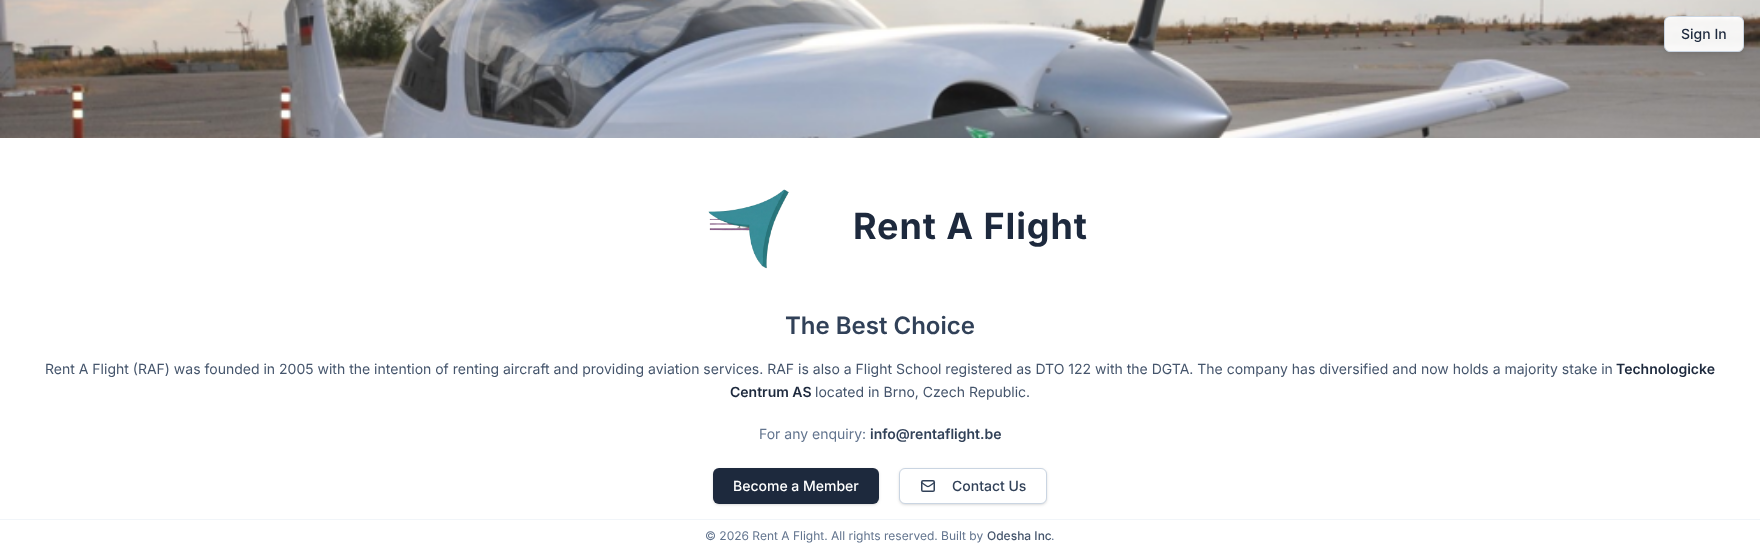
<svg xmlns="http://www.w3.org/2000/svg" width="1760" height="552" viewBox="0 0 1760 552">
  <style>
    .t1 { font: 500 14px Inter; fill: #1d293d; }
    .t2 { font: bold 36px Inter; letter-spacing: 0.9px; fill: #1d293d; }
    .t3 { font: 600 24px Inter; fill: #314158; }
    .t4 { font: 14px Inter; fill: #45556c; }
    .t5 { font: 600 14px Inter; fill: #1d293d; }
    .t6 { font: 14px Inter; fill: #62748e; }
    .t7 { font: 600 14px Inter; fill: #314158; }
    .t8 { font: 500 14px Inter; fill: #fff; }
    .t9 { font: 500 14px Inter; fill: #314158; }
    .t10 { font: 12px Inter; fill: #62748e; }
    .t11 { font: 500 12px Inter; fill: #45556c; }
  </style>
  <defs>
    <clipPath id="clip1"><path d="M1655 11H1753V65H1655ZM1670 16H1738C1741.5 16 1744 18.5 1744 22V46C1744 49.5 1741.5 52 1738 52H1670C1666.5 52 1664 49.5 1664 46V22C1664 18.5 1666.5 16 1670 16Z" clip-rule="evenodd"/></clipPath>
  </defs>
  <rect width="100%" height="100%" fill="#fff"/>
  <image x="0" y="0" width="1760" height="138" href="images/1.png"/>
  <g clip-path="url(#clip1)">
    <rect x="1665" y="21" width="78" height="34" rx="5" fill="#0000001a" filter="blur(3px)"/>
  </g>
  <rect x="1664.5" y="16.5" width="79" height="35" rx="5.5" fill="#fffffff2" stroke="#cad5e2"/>
  <text x="1681" y="39" class="t1">Sign In</text>
  <image x="708" y="189" width="81" height="80" href="images/2.png"/>
  <text x="853" y="239" class="t2">Rent A Flight</text>
  <text x="785" y="334" class="t3">The Best Choice</text>
  <text x="45" y="374" class="t4">Rent A Flight (RAF) was founded in 2005 with the intention of renting aircraft and providing aviation services. RAF is also a Flight School registered as DTO 122 with the DGTA. The company has diversified and now holds a majority stake in</text>
  <text x="1616" y="374" class="t5">Technologicke</text>
  <text x="730" y="397" class="t5">Centrum AS</text>
  <text x="815" y="397" class="t4">located in Brno, Czech Republic.</text>
  <text x="759" y="439" class="t6">For any enquiry:</text>
  <text x="870" y="439" class="t7">info@rentaflight.be</text>
  <rect x="714" y="470" width="164" height="34" rx="5" fill="#0000001a" filter="blur(1px)"/>
  <rect x="713" y="469" width="166" height="36" rx="6" fill="#0000001a" filter="blur(1.5px)"/>
  <rect x="713" y="468" width="166" height="36" rx="6" fill="#1d293d"/>
  <text x="733" y="491" class="t8">Become a Member</text>
  <rect x="900" y="470" width="146" height="34" rx="5" fill="#0000001a" filter="blur(1px)"/>
  <rect x="899" y="469" width="148" height="36" rx="6" fill="#0000001a" filter="blur(1.5px)"/>
  <rect x="899.5" y="468.5" width="147" height="35" rx="5.5" fill="#fff" stroke="#cad5e2"/>
  <path d="M934.5 482.5C926.5 488 929.5 488 921.5 482.5" fill="none" stroke="#314158" stroke-width="1.3" stroke-linecap="round" stroke-linejoin="round"/>
  <rect x="921.75" y="480.75" width="12.5" height="10.5" rx="1.25" fill="none" stroke="#314158" stroke-width="1.5"/>
  <text x="952" y="491" class="t9">Contact Us</text>
  <rect x="0" y="519" width="1760" height="1" fill="#f1f5f9"/>
  <text x="705" y="540" class="t10">© 2026 Rent A Flight. All rights reserved. Built by</text>
  <text x="987" y="540" class="t11">Odesha Inc</text>
  <text x="1051" y="540" class="t10">.</text>
</svg>
